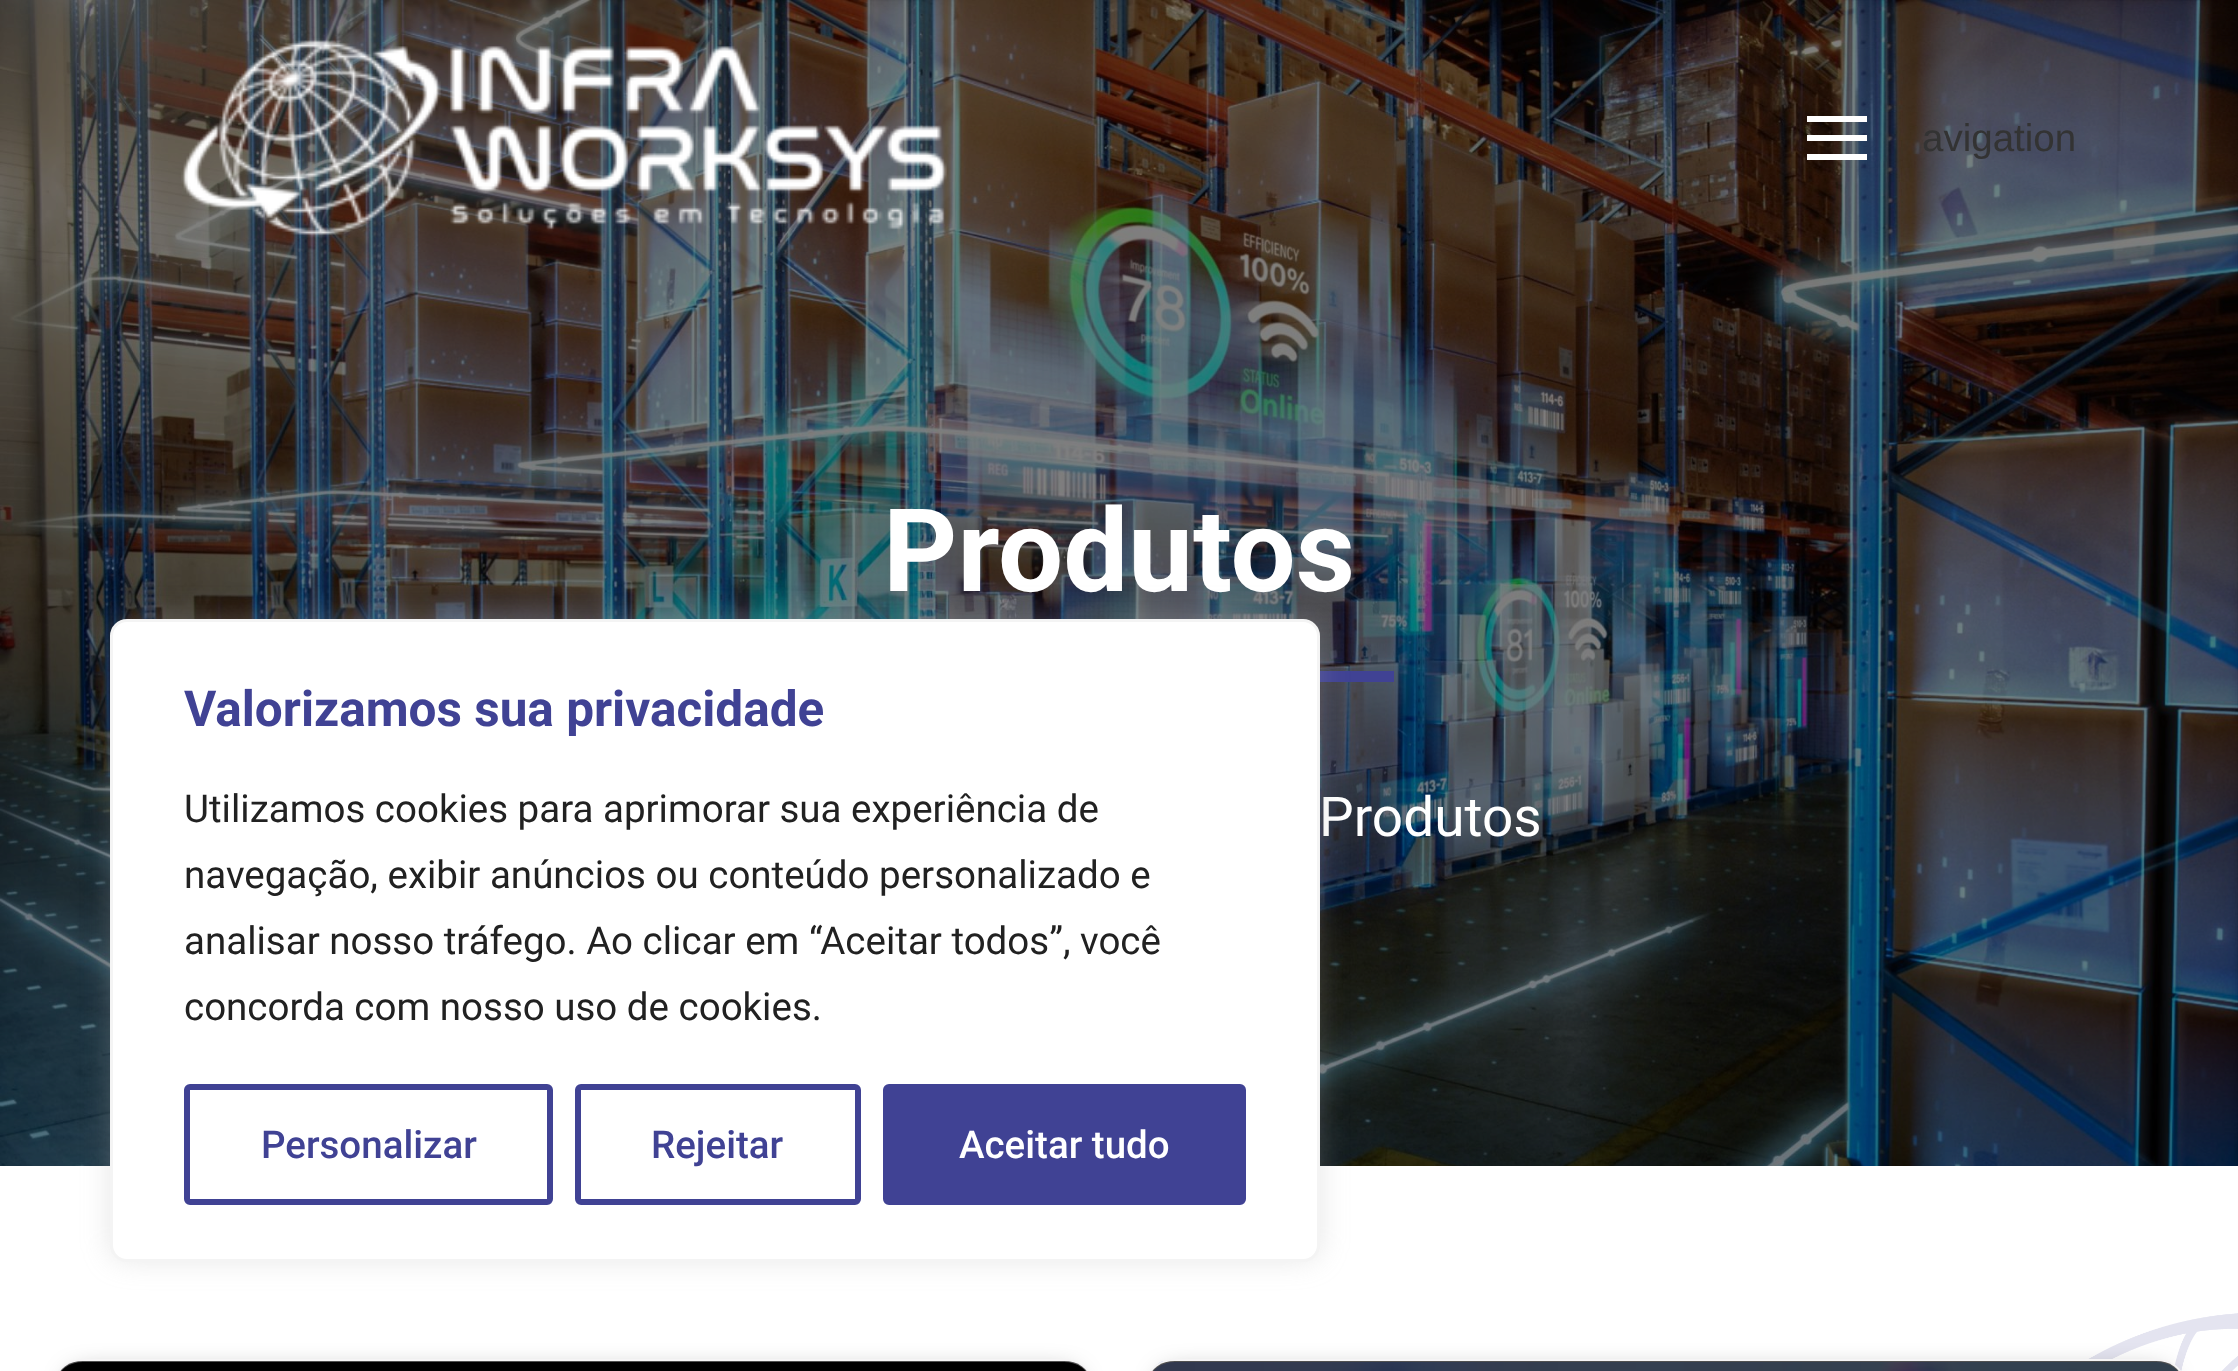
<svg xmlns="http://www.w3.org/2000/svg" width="2238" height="1371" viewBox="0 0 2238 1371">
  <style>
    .t1 { font: 38.5px Liberation Sans; fill: #333; }
    .t2 { font: bold 115.5px Roboto; fill: #fff; }
    .t3 { font: 55px Roboto; fill: #fff; }
    .t4 { font: bold 49.5px Roboto; fill: #404294; }
    .t5 { font: 38.5px Roboto; fill: #212121; }
    .t6 { font: 500 38.5px Roboto; fill: #404294; }
    .t7 { font: 500 38.5px Roboto; fill: #fff; }
  </style>
  <rect width="100%" height="100%" fill="#fff"/>
  <image x="0" y="0" width="2238" height="1166" href="images/2.png"/>
  <image x="181" y="38" width="766" height="200" href="images/1.png"/>
  <rect x="1807" y="116" width="60" height="6" fill="#fff"/>
  <rect x="1807" y="135" width="60" height="6" fill="#fff"/>
  <rect x="1807" y="154" width="60" height="6" fill="#fff"/>
  <text x="1922" y="151" class="t1">avigation</text>
  <text x="883" y="591" class="t2">Produtos</text>
  <rect x="1320" y="671" width="74" height="11" fill="#404294"/>
  <text x="1319" y="836" class="t3">Produtos</text>
  <image x="2088" y="1313" width="150" height="58" href="images/3.png"/>
  <rect x="72" y="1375" width="1003" height="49" rx="11" fill="#00000080" filter="blur(14px)"/>
  <rect x="56.5" y="1360.5" width="1034" height="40" rx="26.5" fill="#000" stroke="#f5f4f5" stroke-width="3"/>
  <rect x="58" y="1361" width="1031" height="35" rx="25" fill="#000000ab"/>
  <rect x="1163" y="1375" width="1004" height="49" rx="11" fill="#00000080" filter="blur(14px)"/>
  <image x="1151" y="1361" width="1028" height="10" href="images/4.png"/>
  <rect x="1148.5" y="1360.5" width="1034" height="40" rx="26.5" fill="none" stroke="#f5f4f5" stroke-width="3"/>
  <rect x="1150" y="1361" width="1031" height="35" rx="25" fill="#000000ab"/>
  <rect x="110" y="616" width="1210" height="644" rx="17" fill="#acabab4d" filter="blur(14px)"/>
  <rect x="111.5" y="620.5" width="1207" height="640" rx="15.5" fill="#fff" stroke="#f4f4f4" stroke-width="3"/>
  <text x="184" y="726" class="t4">Valorizamos sua privacidade</text>
  <text x="184" y="822" class="t5">Utilizamos cookies para aprimorar sua experiência de</text>
  <text x="184" y="888" class="t5">navegação, exibir anúncios ou conteúdo personalizado e</text>
  <text x="184" y="954" class="t5">analisar nosso tráfego. Ao clicar em “Aceitar todos”, você</text>
  <text x="184" y="1020" class="t5">concorda com nosso uso de cookies.</text>
  <rect x="187" y="1087" width="363" height="115" rx="3" fill="none" stroke="#404294" stroke-width="6"/>
  <text x="261" y="1158" class="t6">Personalizar</text>
  <rect x="578" y="1087" width="280" height="115" rx="3" fill="none" stroke="#404294" stroke-width="6"/>
  <text x="651" y="1158" class="t6">Rejeitar</text>
  <rect x="886" y="1087" width="357" height="115" rx="3" fill="#404294" stroke="#404294" stroke-width="6"/>
  <text x="959" y="1158" class="t7">Aceitar tudo</text>
</svg>
